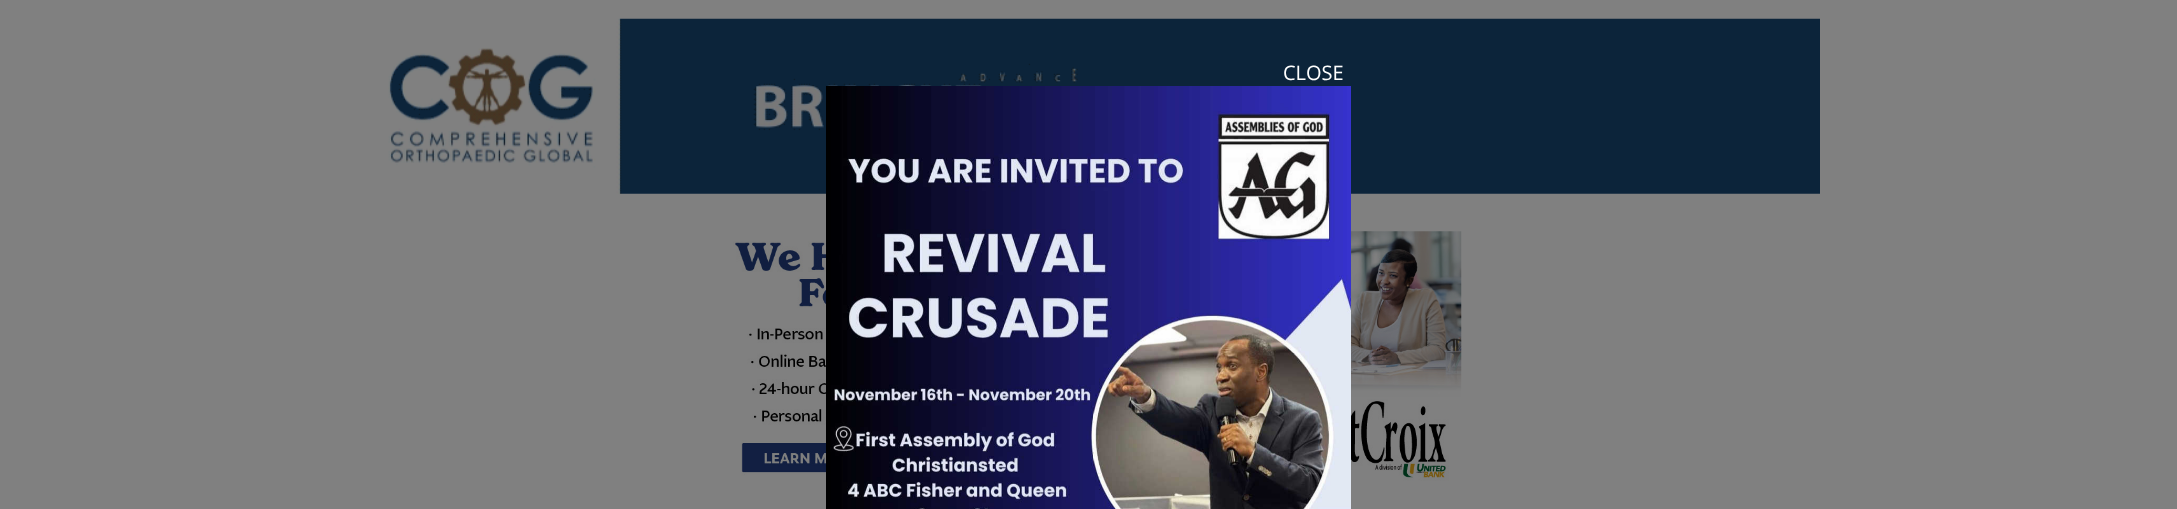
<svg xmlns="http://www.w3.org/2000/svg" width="2177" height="509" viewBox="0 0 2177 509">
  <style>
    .t1 { font: 20px Open Sans; fill: #fff; }
  </style>
  <rect width="100%" height="100%" fill="#808080"/>
  <image x="388" y="18" width="1432" height="176" href="images/1.png"/>
  <text x="1283" y="80" class="t1">CLOSE</text>
  <image x="733" y="231" width="729" height="250" href="images/3.png"/>
  <image x="826" y="86" width="525" height="423" href="images/2.png"/>
</svg>
